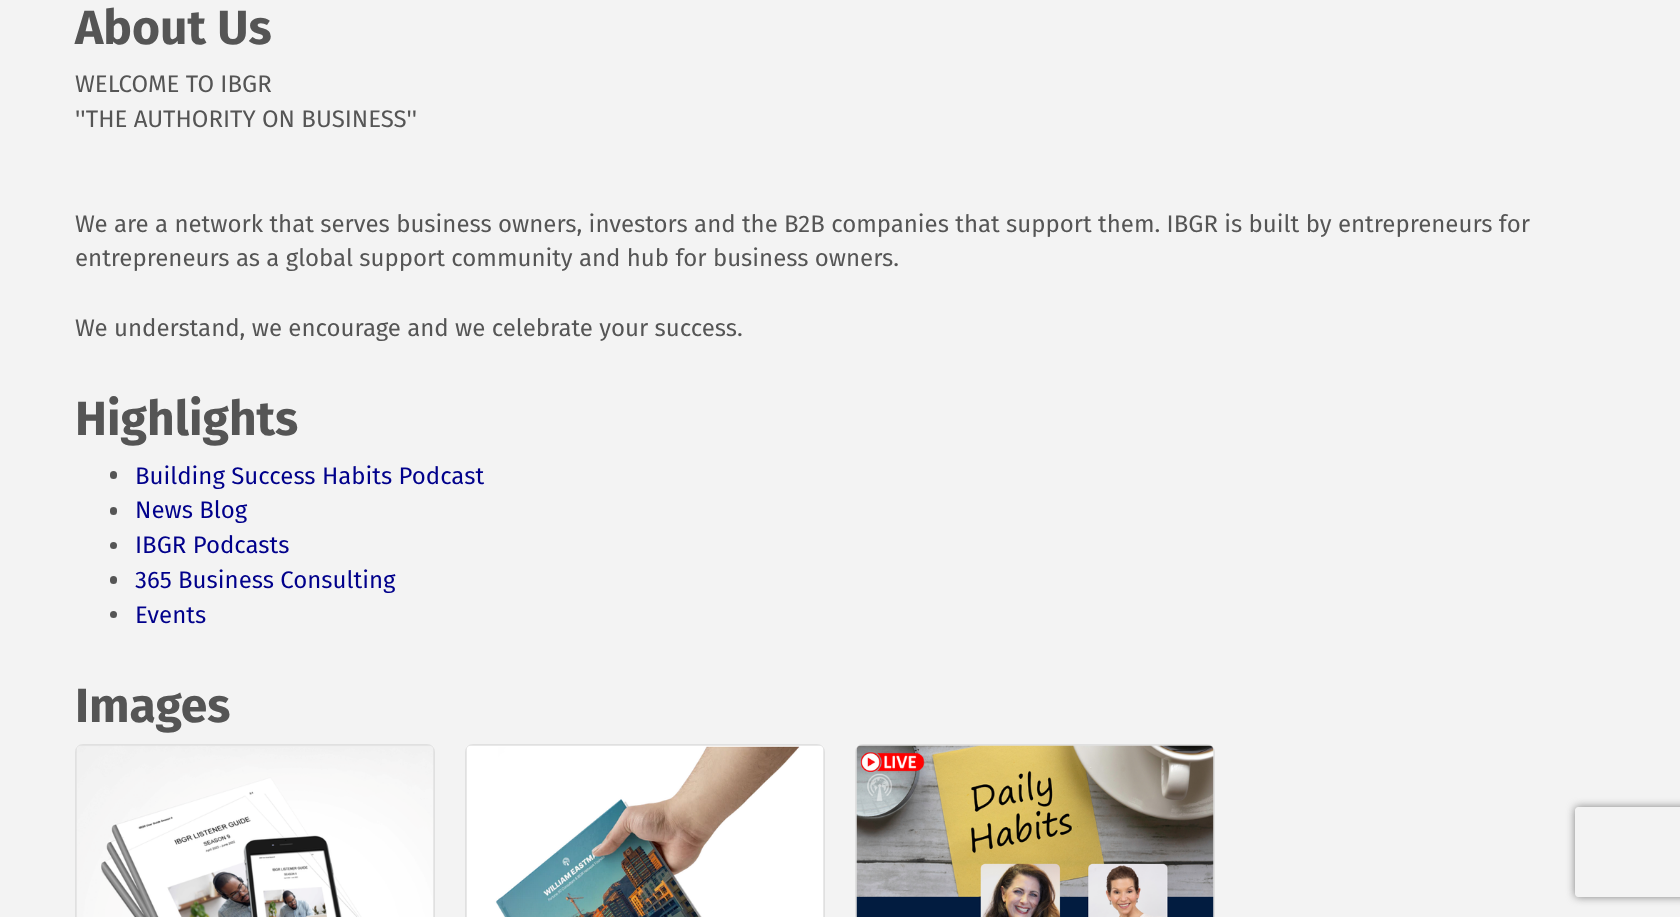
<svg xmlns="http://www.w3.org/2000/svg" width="1680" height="917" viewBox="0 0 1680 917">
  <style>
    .t1 { font: bold 48px Fira Sans; fill: #555; }
    .t2 { font: 24px Fira Sans; fill: #555; }
    .t3 { font: 24px Fira Sans; fill: #00008b; }
  </style>
  <defs>
    <clipPath id="clip1"><path d="M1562 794H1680V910H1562ZM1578 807H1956C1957.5 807 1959 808.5 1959 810V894C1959 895.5 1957.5 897 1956 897H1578C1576.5 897 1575 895.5 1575 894V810C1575 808.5 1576.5 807 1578 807Z" clip-rule="evenodd"/></clipPath>
  </defs>
  <rect width="100%" height="100%" fill="#f3f3f3"/>
  <text x="75" y="44" class="t1">About Us</text>
  <text x="75" y="92" class="t2">WELCOME TO IBGR</text>
  <text x="75" y="127" class="t2">''THE AUTHORITY ON BUSINESS''</text>
  <text x="75" y="232" class="t2">We are a network that serves business owners, investors and the B2B companies that support them. IBGR is built by entrepreneurs for</text>
  <text x="75" y="266" class="t2">entrepreneurs as a global support community and hub for business owners.</text>
  <text x="75" y="336" class="t2">We understand, we encourage and we celebrate your success.</text>
  <text x="75" y="435" class="t1">Highlights</text>
  <rect x="110" y="471" width="7" height="8" rx="3.5" fill="#555"/>
  <text x="135" y="484" class="t3">Building Success Habits Podcast</text>
  <rect x="110" y="507" width="7" height="8" rx="3.5" fill="#555"/>
  <text x="135" y="518" class="t3">News Blog</text>
  <circle cx="113.5" cy="545.5" r="3.5" fill="#555"/>
  <text x="135" y="553" class="t3">IBGR Podcasts</text>
  <rect x="110" y="576" width="7" height="8" rx="3.5" fill="#555"/>
  <text x="135" y="588" class="t3">365 Business Consulting</text>
  <circle cx="113.5" cy="614.5" r="3.5" fill="#555"/>
  <text x="135" y="623" class="t3">Events</text>
  <text x="75" y="722" class="t1">Images</text>
  <rect x="75" y="744" width="360" height="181" rx="8" fill="#fff"/>
  <rect x="76" y="745" width="358" height="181" rx="7" fill="none" stroke="#0000001f" stroke-width="2"/>
  <image x="76" y="745" width="358" height="172" href="images/1.png"/>
  <rect x="465" y="744" width="360" height="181" rx="8" fill="#fff"/>
  <rect x="466" y="745" width="358" height="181" rx="7" fill="none" stroke="#0000001f" stroke-width="2"/>
  <image x="466" y="745" width="358" height="172" href="images/2.png"/>
  <rect x="855" y="744" width="360" height="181" rx="8" fill="#fff"/>
  <rect x="856" y="745" width="358" height="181" rx="7" fill="none" stroke="#0000001f" stroke-width="2"/>
  <image x="856" y="745" width="358" height="172" href="images/3.png"/>
  <g clip-path="url(#clip1)">
    <rect x="1575" y="807" width="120" height="90" rx="3" fill="#808080" filter="blur(4px)"/>
  </g>
</svg>
